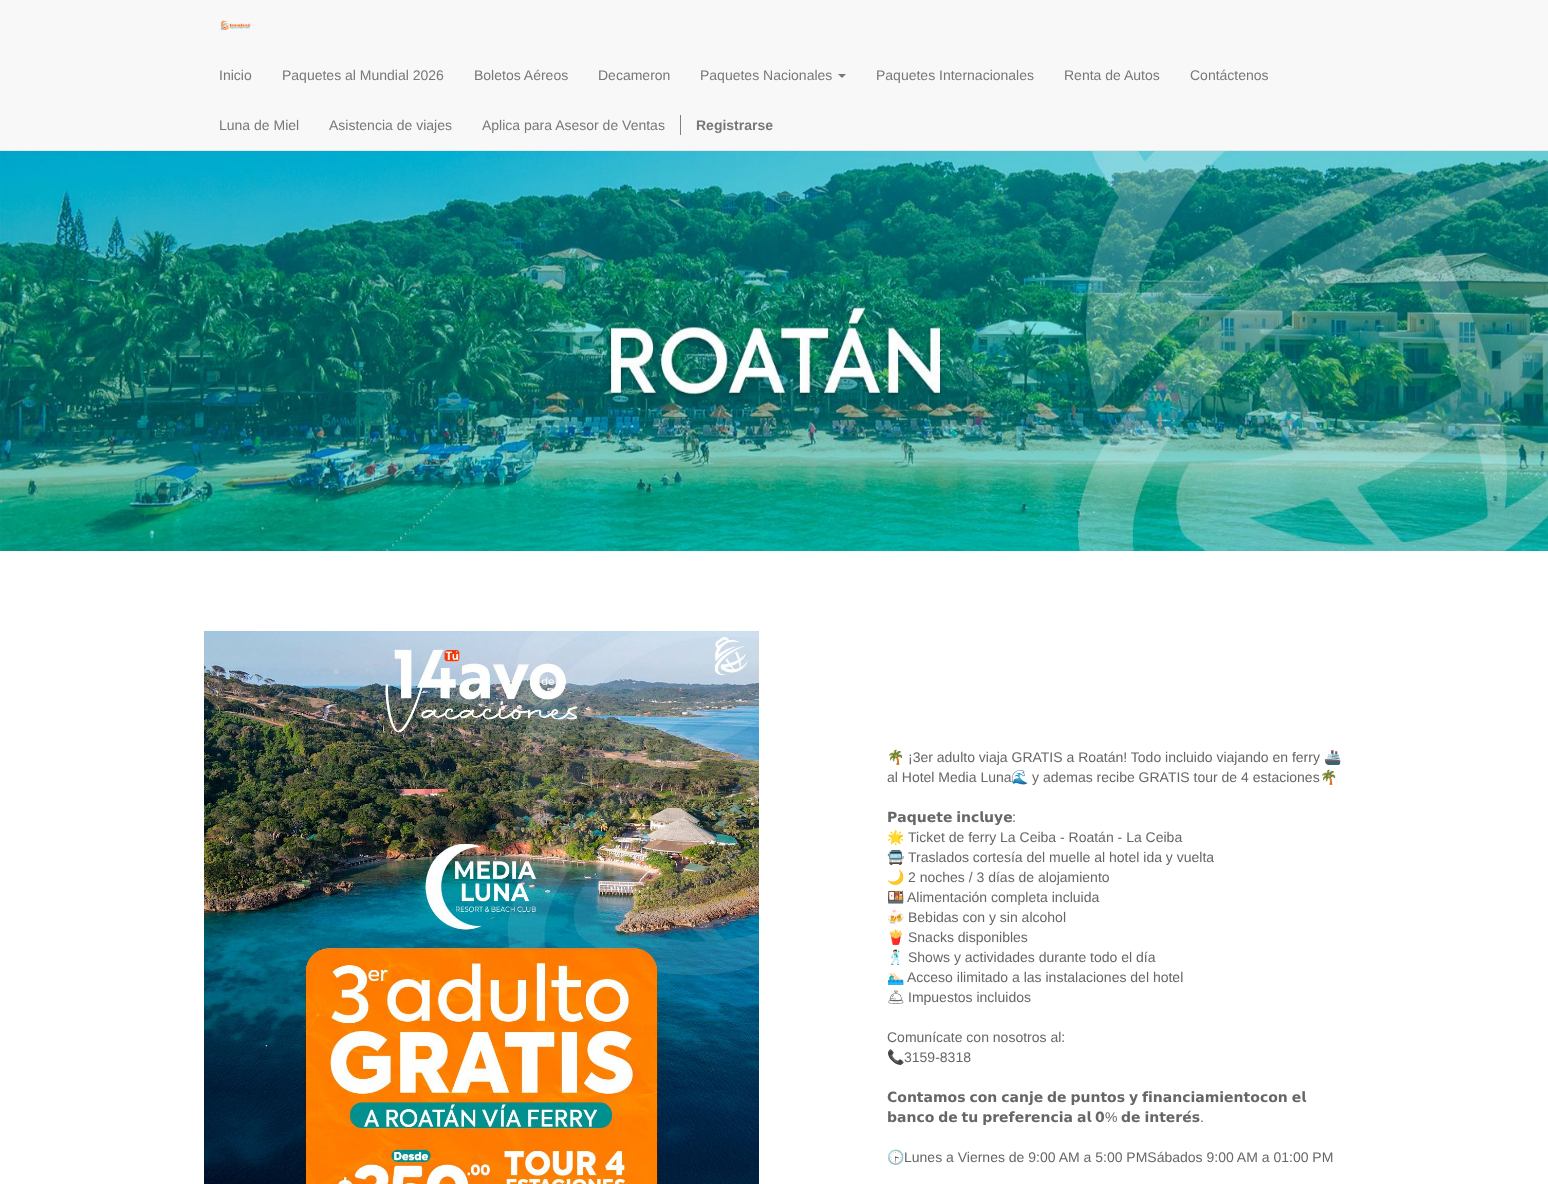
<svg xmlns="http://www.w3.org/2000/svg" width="1548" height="1184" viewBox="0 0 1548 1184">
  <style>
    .t1 { font: 14px Liberation Sans; fill: #777; }
    .t2 { font: bold 14px Liberation Sans; fill: #777; }
    .t3 { font: 14px Noto Color Emoji; fill: #666; }
    .t4 { font: 14px Liberation Sans; fill: #666; }
    .t5 { font: bold 14px DejaVu Sans; fill: #666; }
    .t6 { font: 14px Noto Emoji; fill: #666; }
  </style>
  <rect width="100%" height="100%" fill="#fff"/>
  <rect x="0" y="0" width="1548" height="150" fill="#f8f8f8"/>
  <rect x="0" y="150" width="1548" height="1" fill="#e7e7e7"/>
  <image x="220" y="20" width="31" height="11" href="images/1.png"/>
  <text x="219" y="80" class="t1">Inicio</text>
  <text x="282" y="80" class="t1">Paquetes al Mundial 2026</text>
  <text x="474" y="80" class="t1">Boletos Aéreos</text>
  <text x="598" y="80" class="t1">Decameron</text>
  <text x="700" y="80" class="t1">Paquetes Nacionales</text>
  <path d="M838 74H846L842 78Z" fill="#777"/>
  <text x="876" y="80" class="t1">Paquetes Internacionales</text>
  <text x="1064" y="80" class="t1">Renta de Autos</text>
  <text x="1190" y="80" class="t1">Contáctenos</text>
  <text x="219" y="130" class="t1">Luna de Miel</text>
  <text x="329" y="130" class="t1">Asistencia de viajes</text>
  <text x="482" y="130" class="t1">Aplica para Asesor de Ventas</text>
  <rect x="680" y="115" width="1" height="20" fill="#808080"/>
  <text x="696" y="130" class="t2">Registrarse</text>
  <image x="0" y="151" width="1548" height="400" href="images/2.png"/>
  <image x="204" y="631" width="555" height="553" href="images/3.png"/>
  <text x="887" y="762" class="t3">🌴</text>
  <text x="908" y="762" class="t4">¡3er adulto viaja GRATIS a Roatán! Todo incluido viajando en ferry</text>
  <text x="1324" y="762" class="t3">🚢</text>
  <text x="887" y="782" class="t4">al Hotel Media Luna</text>
  <text x="1011" y="782" class="t3">🌊</text>
  <text x="1032" y="782" class="t4">y ademas recibe GRATIS tour de 4 estaciones</text>
  <text x="1320" y="782" class="t3">🌴</text>
  <text x="887" y="822" word-spacing="-1" class="t5">𝗣𝗮𝗾𝘂𝗲𝘁𝗲 𝗶𝗻𝗰𝗹𝘂𝘆𝗲</text>
  <text x="1012" y="822" class="t4">:</text>
  <text x="887" y="842" class="t3">🌟</text>
  <text x="908" y="842" class="t4">Ticket de ferry La Ceiba - Roatán - La Ceiba</text>
  <text x="887" y="862" class="t3">🚍</text>
  <text x="908" y="862" class="t4">Traslados cortesía del muelle al hotel ida y vuelta</text>
  <text x="887" y="882" class="t3">🌙</text>
  <text x="908" y="882" class="t4">2 noches / 3 días de alojamiento</text>
  <text x="887" y="902" class="t3">🍱</text>
  <text x="907" y="902" class="t4">Alimentación completa incluida</text>
  <text x="887" y="922" class="t3">🍻</text>
  <text x="908" y="922" class="t4">Bebidas con y sin alcohol</text>
  <text x="887" y="942" class="t3">🍟</text>
  <text x="908" y="942" class="t4">Snacks disponibles</text>
  <text x="887" y="962" class="t3">🕺🏻</text>
  <text x="908" y="962" class="t4">Shows y actividades durante todo el día</text>
  <text x="887" y="982" class="t3">🏊🏻‍♂️</text>
  <text x="907" y="982" class="t4">Acceso ilimitado a las instalaciones del hotel</text>
  <text x="887" y="1002" class="t6">🛎</text>
  <text x="908" y="1002" class="t4">Impuestos incluidos</text>
  <text x="887" y="1042" class="t4">Comunícate con nosotros al:</text>
  <text x="887" y="1062" class="t3">📞</text>
  <text x="904" y="1062" class="t4">3159-8318</text>
  <text x="887" y="1102" word-spacing="-1" class="t5">𝗖𝗼𝗻𝘁𝗮𝗺𝗼𝘀 𝗰𝗼𝗻 𝗰𝗮𝗻𝗷𝗲 𝗱𝗲 𝗽𝘂𝗻𝘁𝗼𝘀 𝘆 𝗳𝗶𝗻𝗮𝗻𝗰𝗶𝗮𝗺𝗶𝗲𝗻𝘁𝗼𝗰𝗼𝗻 𝗲𝗹</text>
  <text x="887" y="1122" word-spacing="-1" class="t5">𝗯𝗮𝗻𝗰𝗼 𝗱𝗲 𝘁𝘂 𝗽𝗿𝗲𝗳𝗲𝗿𝗲𝗻𝗰𝗶𝗮 𝗮𝗹 𝟬</text>
  <text x="1105" y="1122" class="t4">%</text>
  <text x="1121" y="1122" word-spacing="-1" class="t5">𝗱𝗲 𝗶𝗻𝘁𝗲𝗿𝗲́𝘀</text>
  <text x="1200" y="1122" class="t4">.</text>
  <text x="887" y="1162" class="t3">🕞</text>
  <text x="904" y="1162" class="t4">Lunes a Viernes de 9:00 AM a 5:00 PMSábados 9:00 AM a 01:00 PM</text>
</svg>
